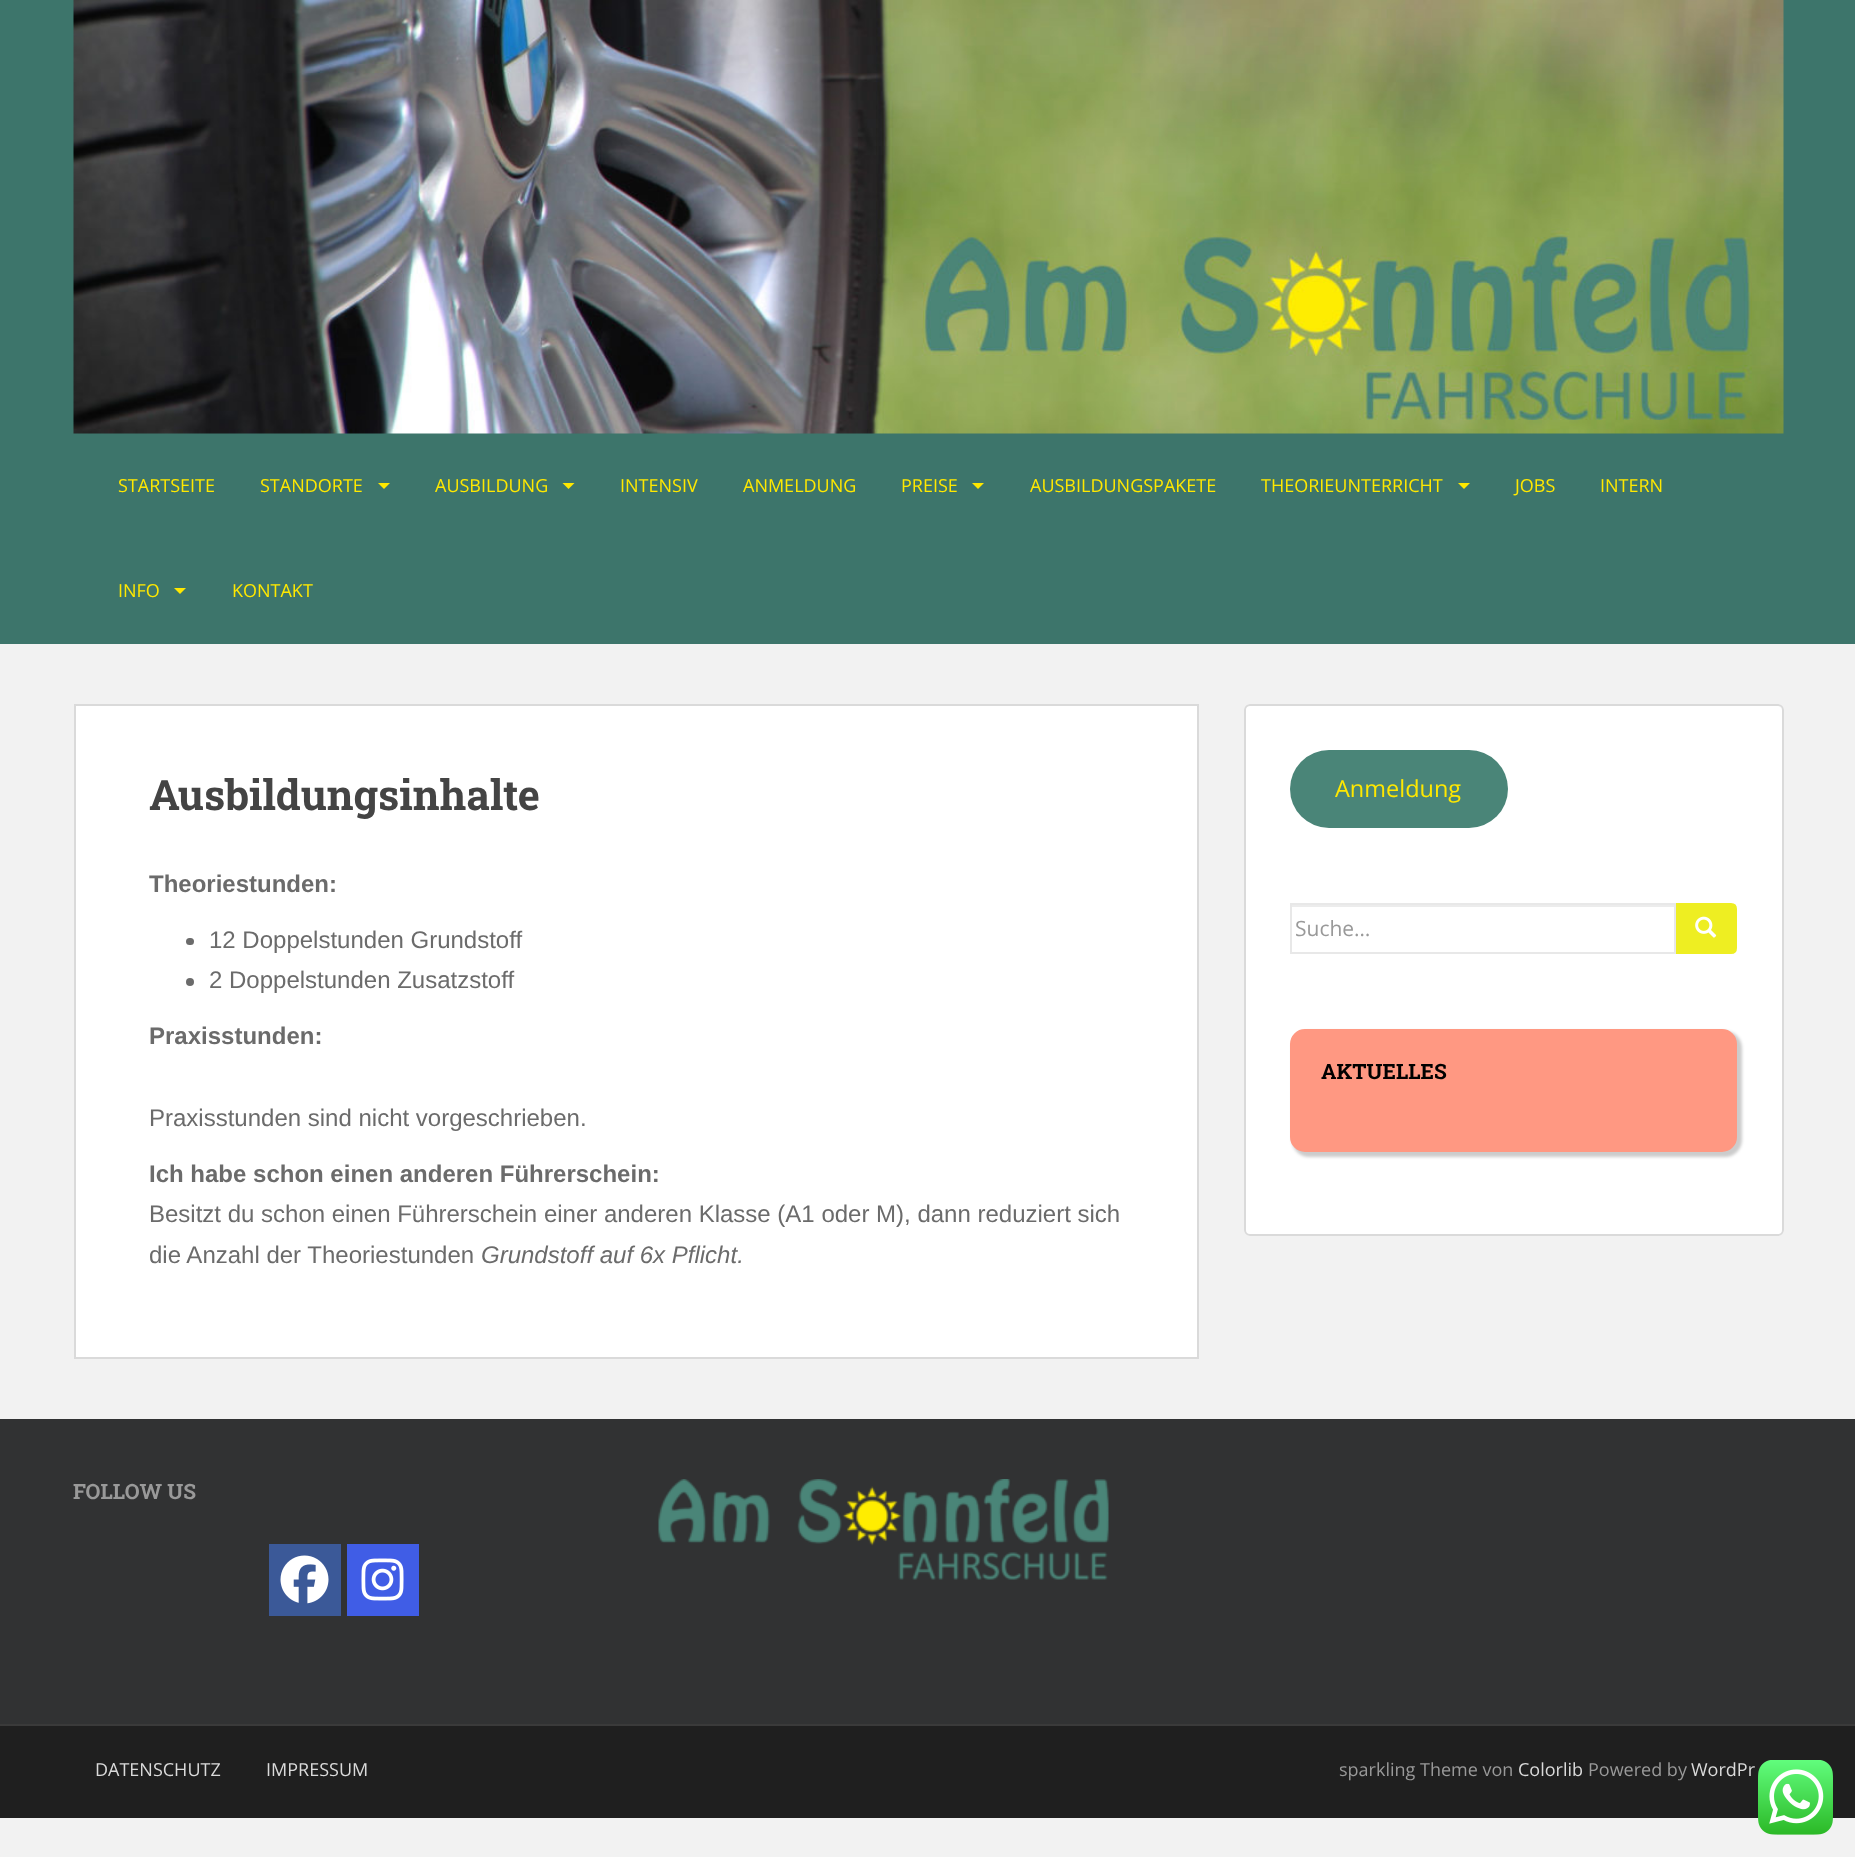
<svg xmlns="http://www.w3.org/2000/svg" width="1855" height="1857" viewBox="0 0 1855 1857">
  <style>
    .t1 { font: 18px Open Sans; fill: #ffe800; }
    .t2 { font: bold 42px Roboto Slab; fill: #444; }
    .t3 { font: bold 24px Liberation Sans; fill: #6b6b6b; }
    .t4 { font: 24px Liberation Sans; fill: #6b6b6b; }
    .t5 { font: italic 24px Liberation Sans; fill: #6b6b6b; }
    .t6 { font: 23.5px Open Sans; fill: #ffe800; }
    .t7 { font: 21px Open Sans; fill: #999; }
    .t8 { font: bold 21px Roboto Slab; fill: #000; }
    .t9 { font: bold 21px Roboto Slab; fill: #999; }
    .t10 { font: 18px Open Sans; fill: #dadada; }
    .t11 { font: 18px Open Sans; fill: #999; }
  </style>
  <rect width="100%" height="100%" fill="#f2f2f2"/>
  <rect x="0" y="0" width="1855" height="644" fill="#3d756b"/>
  <image x="73" y="0" width="1711" height="434" href="images/1.png"/>
  <text x="118" y="492" class="t1">STARTSEITE</text>
  <text x="260" y="492" class="t1">STANDORTE</text>
  <path d="M378 483H390L384 489Z" fill="#ffe800"/>
  <text x="435" y="492" class="t1">AUSBILDUNG</text>
  <path d="M562.5 483H574.5L568.5 489Z" fill="#ffe800"/>
  <text x="620" y="492" class="t1">INTENSIV</text>
  <text x="743" y="492" class="t1">ANMELDUNG</text>
  <text x="901" y="492" class="t1">PREISE</text>
  <path d="M972 483H984L978 489Z" fill="#ffe800"/>
  <text x="1030" y="492" class="t1">AUSBILDUNGSPAKETE</text>
  <text x="1261" y="492" class="t1">THEORIEUNTERRICHT</text>
  <path d="M1458 483H1470L1464 489Z" fill="#ffe800"/>
  <text x="1515" y="492" class="t1">JOBS</text>
  <text x="1600" y="492" class="t1">INTERN</text>
  <text x="118" y="597" class="t1">INFO</text>
  <path d="M174 588H186L180 594Z" fill="#ffe800"/>
  <text x="232" y="597" class="t1">KONTAKT</text>
  <rect x="75" y="705" width="1123" height="653" fill="#fff" stroke="#dadada" stroke-width="2"/>
  <text x="149" y="810" class="t2">Ausbildungsinhalte</text>
  <text x="149" y="892" class="t3">Theoriestunden:</text>
  <rect x="186" y="938" width="8" height="7" rx="3.5" fill="#6b6b6b"/>
  <text x="209" y="948" class="t4">12 Doppelstunden Grundstoff</text>
  <circle cx="190" cy="982" r="4" fill="#6b6b6b"/>
  <text x="209" y="988" class="t4">2 Doppelstunden Zusatzstoff</text>
  <text x="149" y="1044" class="t3">Praxisstunden:</text>
  <text x="149" y="1126" class="t4">Praxisstunden sind nicht vorgeschrieben.</text>
  <text x="149" y="1182" class="t3">Ich habe schon einen anderen Führerschein:</text>
  <text x="149" y="1222" class="t4">Besitzt du schon einen Führerschein einer anderen Klasse (A1 oder M), dann reduziert sich</text>
  <text x="149" y="1263" class="t4">die Anzahl der Theoriestunden</text>
  <text x="481" y="1263" class="t5">Grundstoff auf 6x Pflicht.</text>
  <rect x="1244" y="704" width="540" height="532" rx="6" fill="#fff"/>
  <path d="M1250 706H1778C1780 706 1782 709 1782 711C1782 708 1780 705 1777 705H1250C1247 705 1245 708 1245 711C1245 709 1247 706 1250 706Z" fill="#f2f2f2"/>
  <rect x="1245" y="705" width="538" height="530" rx="5" fill="none" stroke="#dadada" stroke-width="2"/>
  <rect x="1290" y="750" width="218" height="78" rx="39" fill="#4a8578"/>
  <text x="1335" y="797" class="t6">Anmeldung</text>
  <rect x="1292" y="905" width="382" height="2" fill="#ececec"/>
  <rect x="1291" y="904" width="384" height="49" fill="none" stroke="#e8e8e8" stroke-width="2"/>
  <text x="1295" y="936" class="t7">Suche…</text>
  <path d="M1677 904H1731C1734 904 1736 906 1736 909V948C1736 951 1734 953 1731 953H1677Z" fill="#ee2" stroke="#ee2" stroke-width="2"/>
  <image x="1695" y="916" width="22" height="22" href="images/2.png"/>
  <rect x="1292" y="1031" width="450" height="126" rx="17" fill="#00000033" filter="blur(1.5px)"/>
  <rect x="1291" y="1030" width="445" height="121" rx="14" fill="#ff9882" stroke="#ff9882" stroke-width="2"/>
  <text x="1321" y="1079" class="t8">AKTUELLES</text>
  <rect x="0" y="1419" width="1855" height="305" fill="#313233"/>
  <text x="73" y="1499" class="t9">FOLLOW US</text>
  <rect x="269" y="1544" width="72" height="72" fill="#3b5998"/>
  <image x="280" y="1555" width="49" height="49" href="images/3.png"/>
  <rect x="347" y="1544" width="72" height="72" fill="#405de6"/>
  <image x="361" y="1558" width="43" height="43" href="images/4.png"/>
  <image x="658" y="1479" width="451" height="101" href="images/5.png"/>
  <rect x="0" y="1726" width="1855" height="92" fill="#1f1f1f"/>
  <rect x="0" y="1724" width="1855" height="2" fill="#3a3a3a"/>
  <text x="95" y="1776" class="t10">DATENSCHUTZ</text>
  <text x="266" y="1776" class="t10">IMPRESSUM</text>
  <text x="1339" y="1776" class="t11">sparkling Theme von</text>
  <text x="1518" y="1776" class="t10">Colorlib</text>
  <text x="1588" y="1776" class="t11">Powered by</text>
  <text x="1691" y="1776" class="t10">WordPr</text>
  <image x="1758" y="1760" width="75" height="75" href="images/6.png"/>
</svg>
